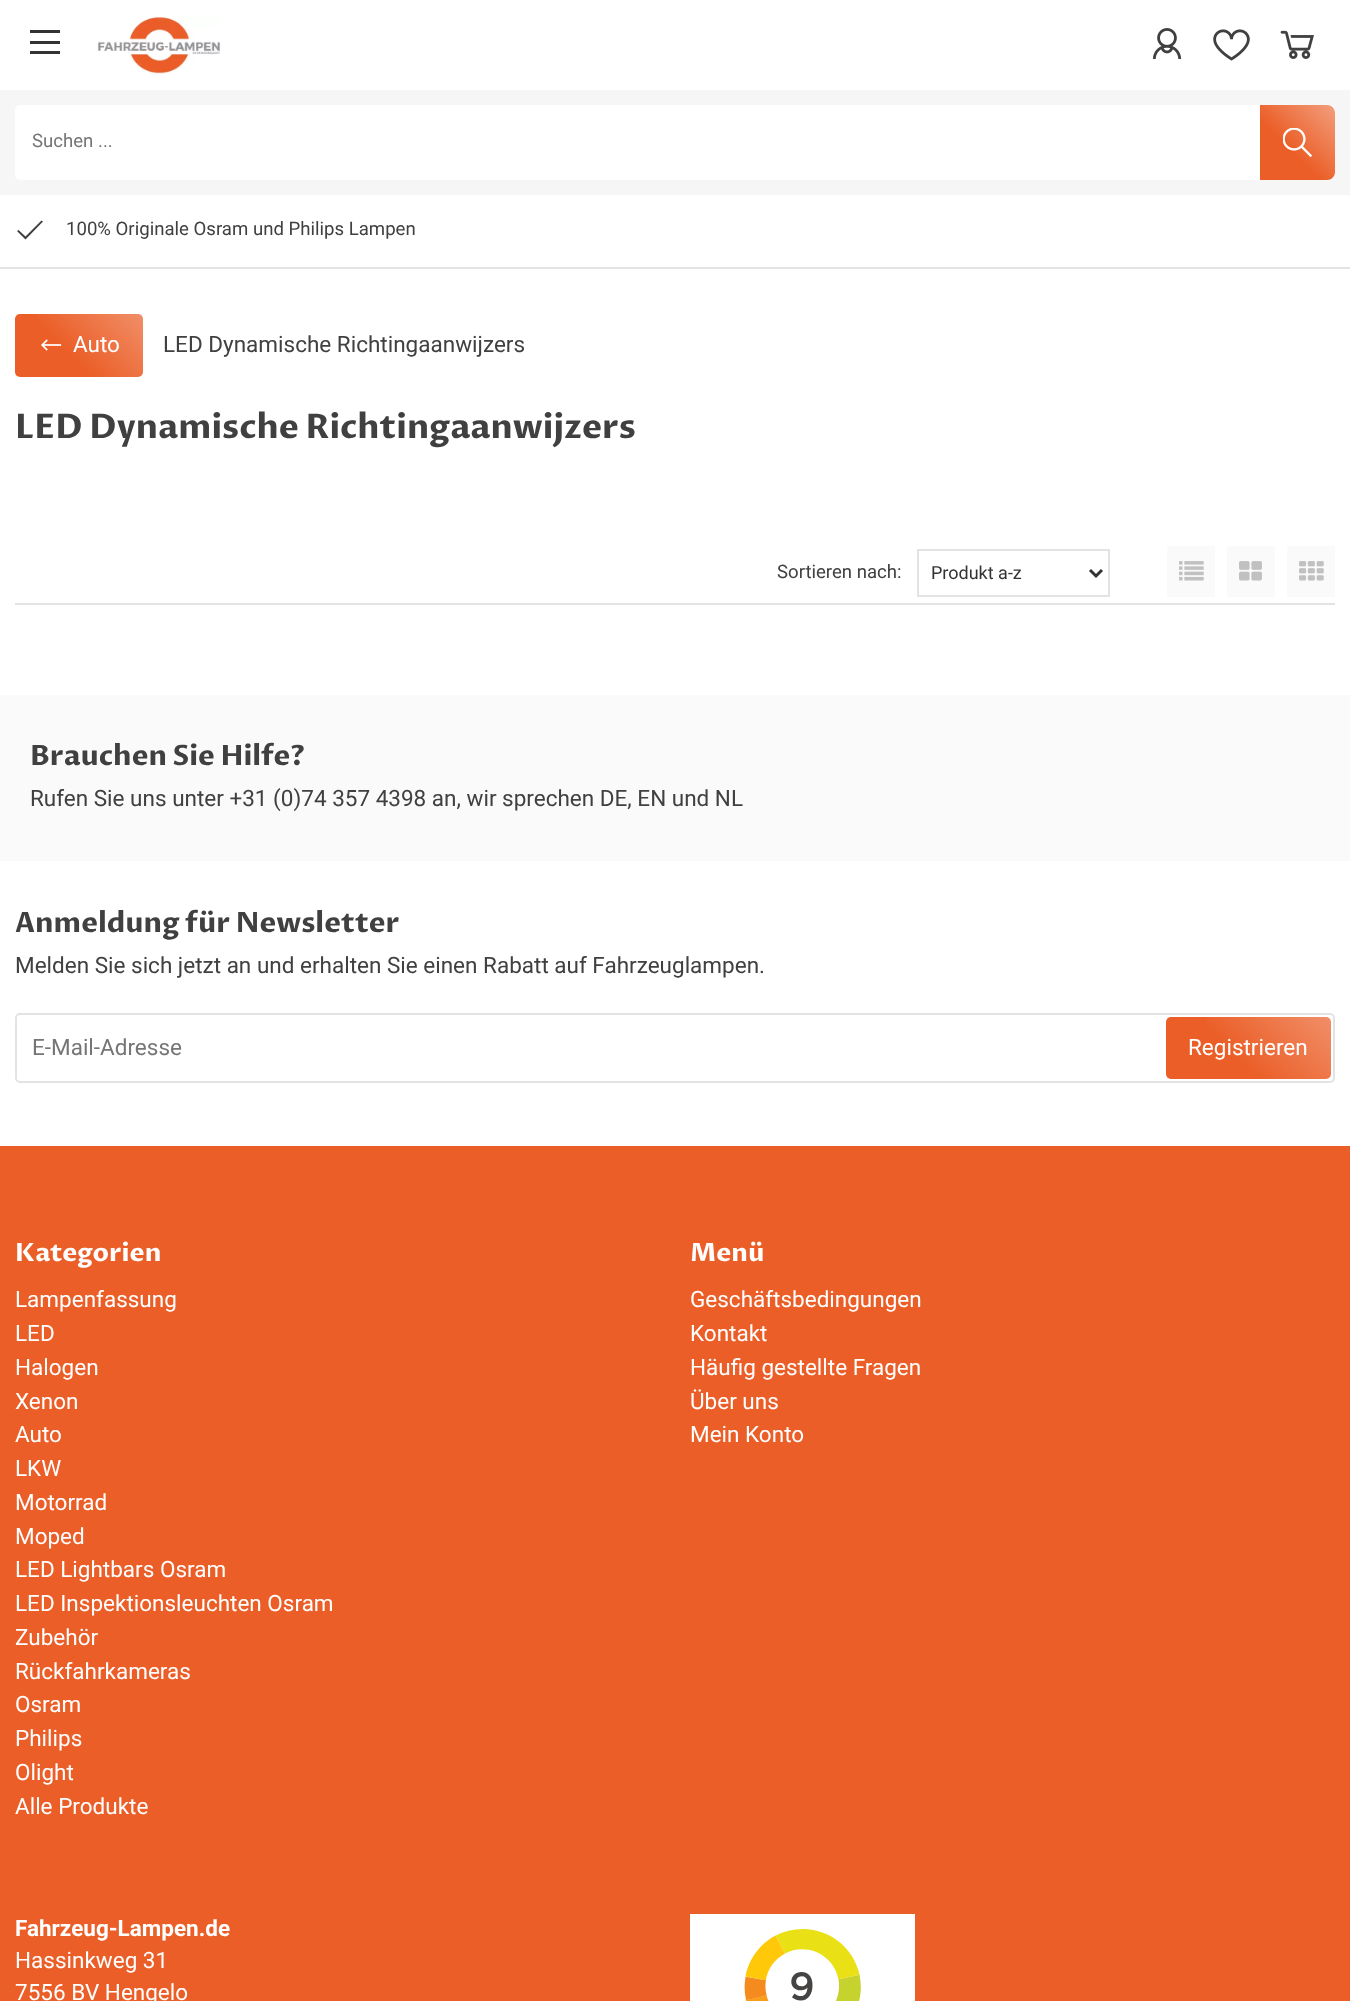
<svg xmlns="http://www.w3.org/2000/svg" width="1350" height="2001" viewBox="0 0 1350 2001">
  <style>
    .t1 { font: 18.6px Roboto; fill: #757575; }
    .t2 { font: 18.6px Roboto; fill: #404040; }
    .t3 { font: 22.5px Roboto; fill: #fff; }
    .t4 { font: 22.5px Roboto; fill: #404040; }
    .t5 { font: bold 33.75px Proza Libre; fill: #404040; }
    .t6 { font: 18px Roboto; fill: #333; }
    .t7 { font: bold 28.1px Proza Libre; fill: #404040; }
    .t8 { font: 22.5px Roboto; fill: #757575; }
    .t9 { font: bold 25.25px Proza Libre; fill: #fff; }
    .t10 { font: bold 22.5px Roboto; fill: #fff; }
  </style>
  <defs>
    <linearGradient id="g1" gradientUnits="userSpaceOnUse" x1="1335" y1="105" x2="1260" y2="180"><stop offset="0" stop-color="#fff" stop-opacity="0.4"/><stop offset="0.6" stop-color="#fff" stop-opacity="0"/></linearGradient>
    <linearGradient id="g2" gradientUnits="userSpaceOnUse" x1="126" y1="297" x2="31" y2="393"><stop offset="0" stop-color="#fff" stop-opacity="0.3"/><stop offset="0.6" stop-color="#fff" stop-opacity="0"/></linearGradient>
    <linearGradient id="g3" gradientUnits="userSpaceOnUse" x1="1305" y1="991" x2="1191" y2="1104"><stop offset="0" stop-color="#fff" stop-opacity="0.3"/><stop offset="0.6" stop-color="#fff" stop-opacity="0"/></linearGradient>
  </defs>
  <rect width="100%" height="100%" fill="#fff"/>
  <rect x="30" y="30" width="30" height="3" fill="#333"/>
  <rect x="30" y="41" width="30" height="3" fill="#333"/>
  <rect x="30" y="51" width="30" height="3" fill="#333"/>
  <image x="97" y="15" width="124" height="59" href="images/1.png"/>
  <image x="1152" y="28" width="30" height="31" href="images/2.png"/>
  <image x="1213" y="29" width="37" height="32" href="images/3.png"/>
  <image x="1280" y="30" width="34" height="29" href="images/4.png"/>
  <rect x="0" y="90" width="1350" height="105" fill="#f6f6f6"/>
  <rect x="15" y="105" width="1320" height="75" rx="5" fill="#fff"/>
  <text x="32" y="147" class="t1">Suchen ...</text>
  <path d="M1260 105H1327C1331.5 105 1335 108.5 1335 113V172C1335 176.5 1331.5 180 1327 180H1260Z" fill="#eb5e27"/>
  <rect x="1260" y="105" width="75" height="75" fill="url(#g1)"/>
  <image x="1283" y="128" width="30" height="30" href="images/5.png"/>
  <rect x="0" y="267" width="1350" height="2" fill="#e3e3e3"/>
  <path d="M41.5 220.5L25.5 236.5L18.5 230L17 231L25.5 239.5L43 221.5Z" fill="#3d3d3d"/>
  <text x="66" y="235" class="t2">100% Originale Osram und Philips Lampen</text>
  <rect x="15" y="314" width="128" height="63" rx="5" fill="#eb5e27"/>
  <image x="41" y="339" width="21" height="12" href="images/6.png"/>
  <rect x="37" y="314" width="106" height="63" fill="url(#g2)"/>
  <text x="73" y="352" class="t3">Auto</text>
  <text x="163" y="352" class="t4">LED Dynamische Richtingaanwijzers</text>
  <text x="15" y="438" class="t5">LED Dynamische Richtingaanwijzers</text>
  <rect x="15" y="603" width="1320" height="2" fill="#e3e3e3"/>
  <text x="777" y="578" class="t2">Sortieren nach:</text>
  <rect x="918" y="550" width="191" height="46" fill="none" stroke="#e3e3e3" stroke-width="2"/>
  <path d="M1090 570L1096 576L1102 570" fill="none" stroke="#333" stroke-width="3"/>
  <text x="931" y="579" class="t6">Produkt a-z</text>
  <rect x="1167" y="546" width="48" height="51" fill="#fafafa"/>
  <image x="1179" y="561" width="25" height="20" href="images/7.png"/>
  <rect x="1227" y="546" width="48" height="51" fill="#fafafa"/>
  <image x="1239" y="561" width="23" height="20" href="images/8.png"/>
  <rect x="1287" y="546" width="48" height="51" fill="#fafafa"/>
  <image x="1299" y="561" width="25" height="20" href="images/9.png"/>
  <rect x="0" y="695" width="1350" height="166" fill="#fafafa"/>
  <text x="30" y="765" class="t7">Brauchen Sie Hilfe?</text>
  <text x="30" y="806" class="t4">Rufen Sie uns unter +31 (0)74 357 4398 an, wir sprechen DE, EN und NL</text>
  <text x="15" y="932" class="t7">Anmeldung für Newsletter</text>
  <text x="15" y="973" class="t4">Melden Sie sich jetzt an und erhalten Sie einen Rabatt auf Fahrzeuglampen.</text>
  <rect x="16" y="1014" width="1318" height="68" rx="4" fill="none" stroke="#e3e3e3" stroke-width="2"/>
  <text x="32" y="1055" class="t8">E-Mail-Adresse</text>
  <rect x="1166" y="1017" width="165" height="62" rx="5" fill="#eb5e27"/>
  <rect x="1205" y="1017" width="126" height="62" fill="url(#g3)"/>
  <text x="1188" y="1055" class="t3">Registrieren</text>
  <rect x="0" y="1146" width="1350" height="855" fill="#eb5e27"/>
  <text x="15" y="1261" class="t9">Kategorien</text>
  <text x="15" y="1307" class="t3">Lampenfassung</text>
  <text x="15" y="1341" class="t3">LED</text>
  <text x="15" y="1375" class="t3">Halogen</text>
  <text x="15" y="1409" class="t3">Xenon</text>
  <text x="15" y="1442" class="t3">Auto</text>
  <text x="15" y="1476" class="t3">LKW</text>
  <text x="15" y="1510" class="t3">Motorrad</text>
  <text x="15" y="1544" class="t3">Moped</text>
  <text x="15" y="1577" class="t3">LED Lightbars Osram</text>
  <text x="15" y="1611" class="t3">LED Inspektionsleuchten Osram</text>
  <text x="15" y="1645" class="t3">Zubehör</text>
  <text x="15" y="1679" class="t3">Rückfahrkameras</text>
  <text x="15" y="1712" class="t3">Osram</text>
  <text x="15" y="1746" class="t3">Philips</text>
  <text x="15" y="1780" class="t3">Olight</text>
  <text x="15" y="1814" class="t3">Alle Produkte</text>
  <text x="690" y="1261" class="t9">Menü</text>
  <text x="690" y="1307" class="t3">Geschäftsbedingungen</text>
  <text x="690" y="1341" class="t3">Kontakt</text>
  <text x="690" y="1375" class="t3">Häufig gestellte Fragen</text>
  <text x="690" y="1409" class="t3">Über uns</text>
  <text x="690" y="1442" class="t3">Mein Konto</text>
  <text x="15" y="1936" class="t10">Fahrzeug-Lampen.de</text>
  <text x="15" y="1968" class="t3">Hassinkweg 31</text>
  <text x="15" y="2000" class="t3">7556 BV Hengelo</text>
  <image x="690" y="1914" width="225" height="87" href="images/10.png"/>
</svg>
